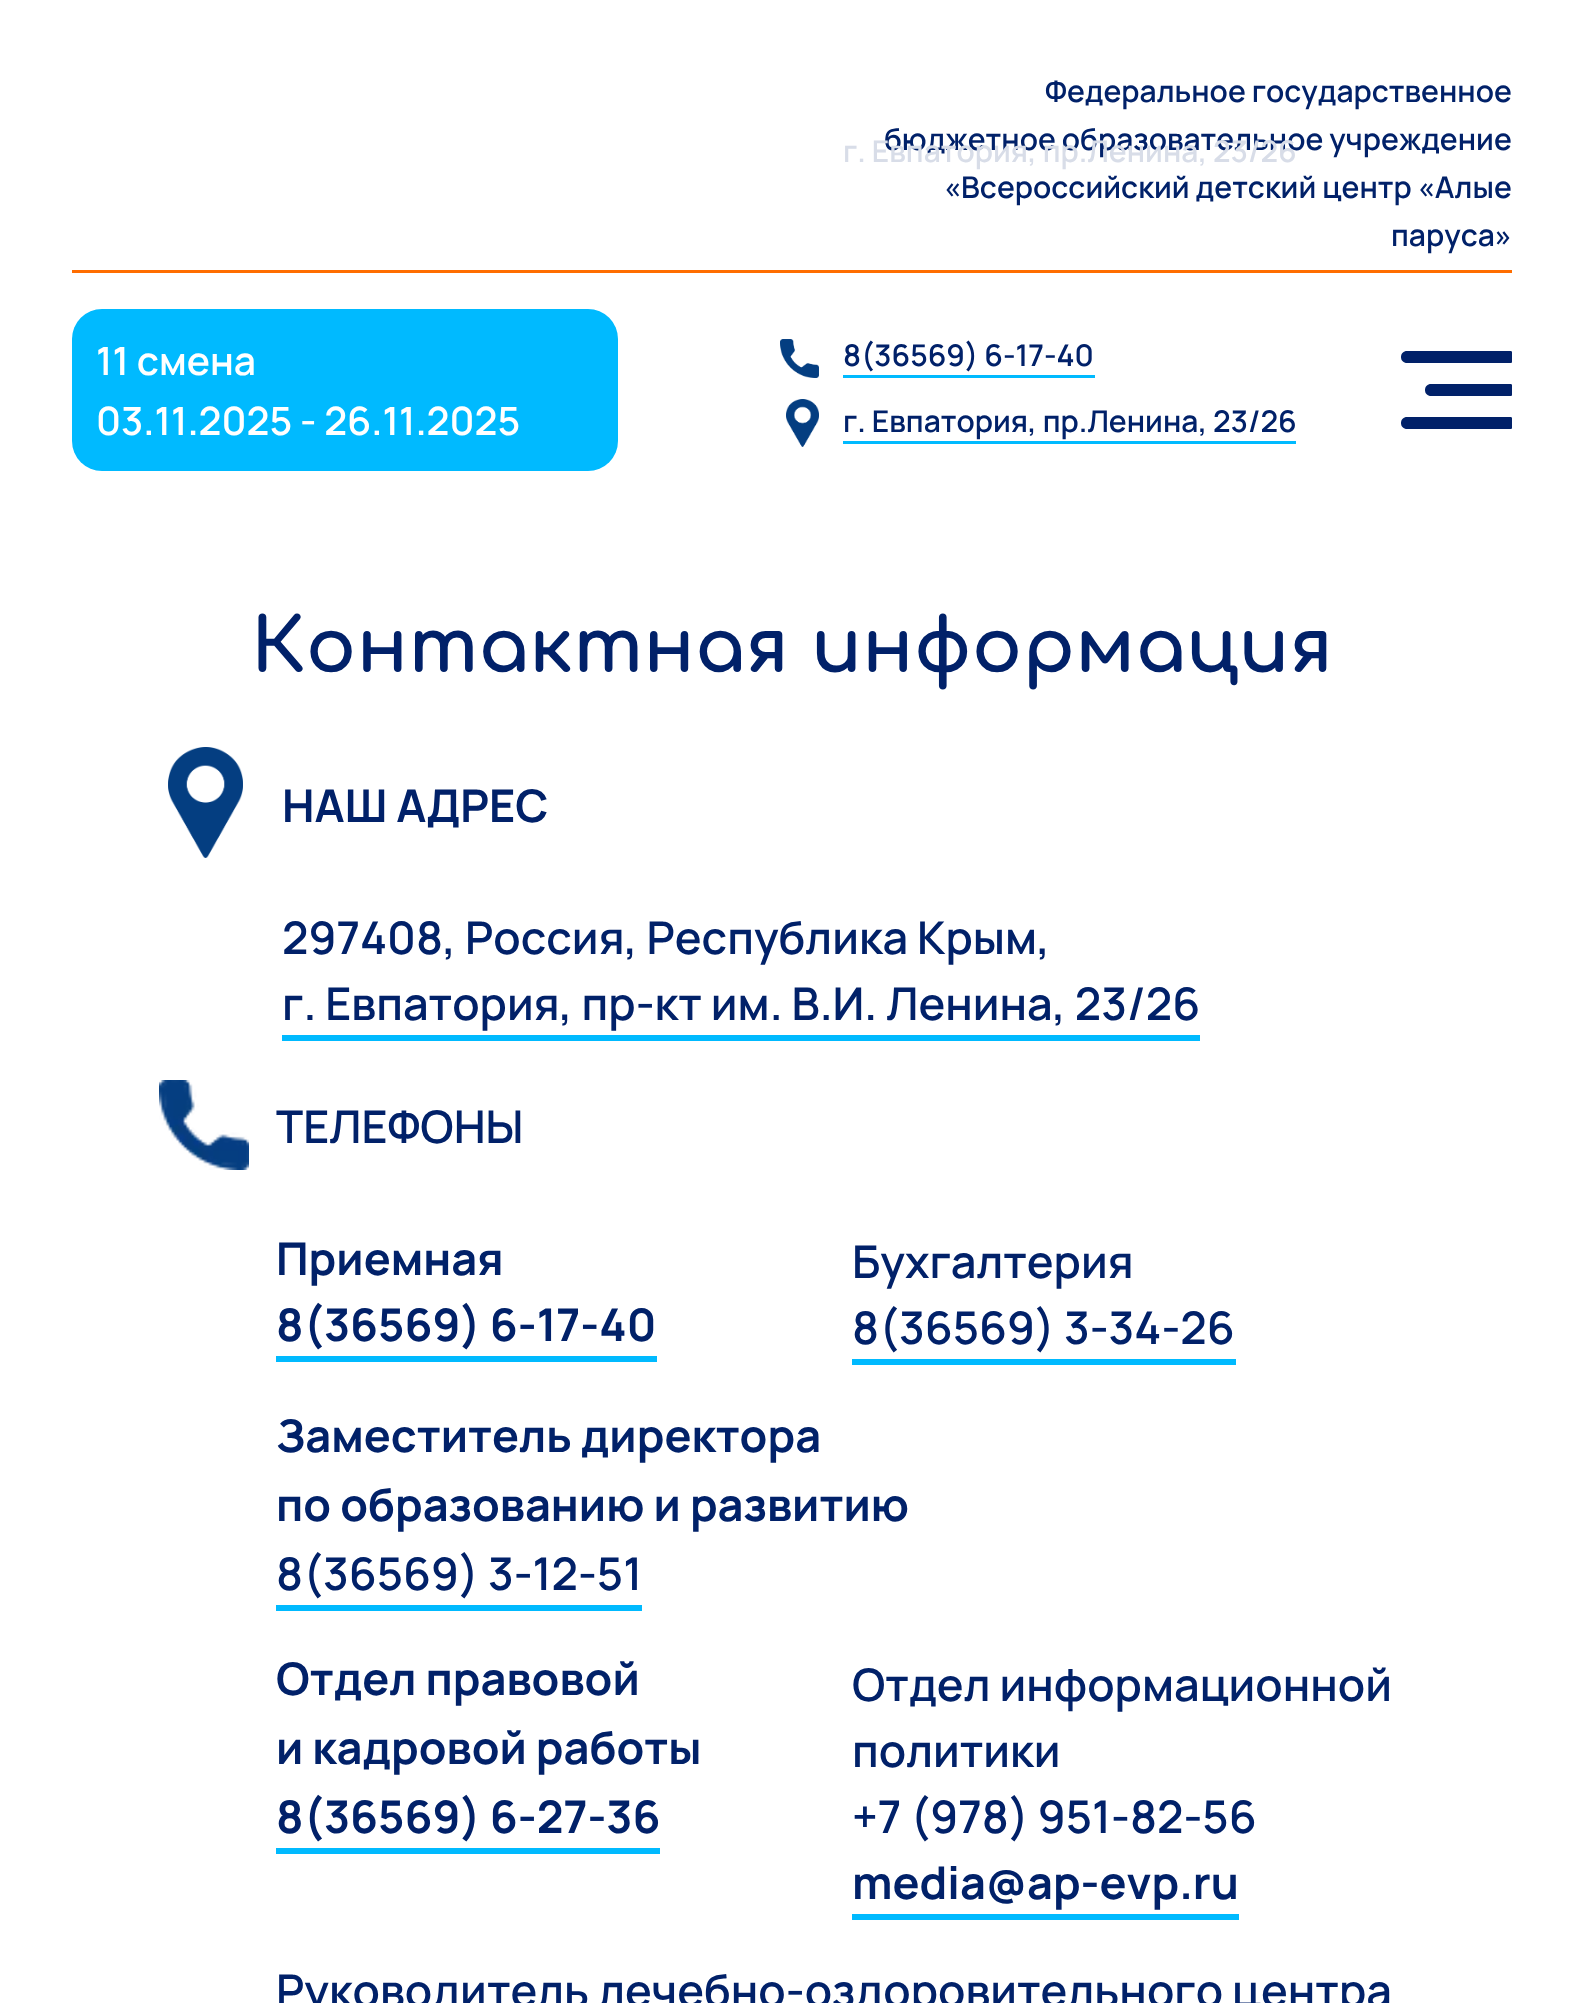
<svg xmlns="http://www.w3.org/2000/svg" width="1584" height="2003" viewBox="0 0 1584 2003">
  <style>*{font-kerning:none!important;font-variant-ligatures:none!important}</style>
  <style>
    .t1 { font: 600 30px Manrope; fill: #012169; }
    .t2 { font: 600 30px Manrope; fill: #d8dde8; }
    .t3 { font: 600 39px Manrope; fill: #fff; }
    .t4 { font: bold 75px Comfortaa; fill: #012169; }
    .t5 { font: bold 45px Manrope; fill: #012169; }
    .t6 { font: 600 45px Manrope; fill: #012169; }
  </style>
  <rect width="100%" height="100%" fill="#fff"/>
  <text x="1045" y="102" class="t1">Федеральное государственное</text>
  <text x="884" y="150" class="t1">бюджетное образовательное учреждение</text>
  <text x="944" y="198" class="t1">«Всероссийский детский центр «Алые</text>
  <text x="1391" y="246" class="t1">паруса»</text>
  <text x="843" y="162" class="t2">г. Евпатория, пр.Ленина, 23/26</text>
  <rect x="72" y="270" width="1440" height="3" fill="#ff6d00"/>
  <rect x="72" y="309" width="546" height="162" rx="30" fill="#00baff"/>
  <image x="780" y="339" width="39" height="39" href="images/1.png"/>
  <text x="843" y="366" class="t1">8(36569) 6-17-40</text>
  <rect x="843" y="375" width="252" height="3" fill="#00baff"/>
  <text x="96" y="375" class="t3">11 смена</text>
  <text x="96" y="435" class="t3">03.11.2025 - 26.11.2025</text>
  <path d="M1407 351H1510.5C1511.5 351 1512 351.5 1512 352.5V361.5C1512 362.5 1511.5 363 1510.5 363H1407C1403.5 363 1401 360.5 1401 357C1401 353.5 1403.5 351 1407 351Z" fill="#012169"/>
  <path d="M1431 384H1510.5C1511.5 384 1512 384.5 1512 385.5V394.5C1512 395.5 1511.5 396 1510.5 396H1431C1427.5 396 1425 393.5 1425 390C1425 386.5 1427.5 384 1431 384Z" fill="#012169"/>
  <image x="786" y="399" width="33" height="48" href="images/2.png"/>
  <text x="843" y="432" class="t1">г. Евпатория, пр.Ленина, 23/26</text>
  <rect x="843" y="441" width="453" height="3" fill="#00baff"/>
  <path d="M1407 417H1510.5C1511.5 417 1512 417.5 1512 418.5V427.5C1512 428.5 1511.5 429 1510.5 429H1407C1403.5 429 1401 426.5 1401 423C1401 419.5 1403.5 417 1407 417Z" fill="#012169"/>
  <text x="251" y="672" class="t4">Контактная информация</text>
  <image x="168" y="747" width="75" height="111" href="images/3.png"/>
  <text x="282" y="822" class="t5">НАШ АДРЕС</text>
  <text x="282" y="954" class="t6">297408, Россия, Республика Крым,</text>
  <text x="282" y="1020" class="t6">г. Евпатория, пр-кт им. В.И. Ленина, 23/26</text>
  <rect x="282" y="1035" width="918" height="6" fill="#00baff"/>
  <image x="159" y="1080" width="90" height="90" href="images/4.png"/>
  <text x="276" y="1143" class="t6">ТЕЛЕФОНЫ</text>
  <text x="276" y="1275" class="t5">Приемная</text>
  <text x="276" y="1341" class="t5">8(36569) 6-17-40</text>
  <rect x="276" y="1356" width="381" height="6" fill="#00baff"/>
  <text x="852" y="1278" class="t6">Бухгалтерия</text>
  <text x="852" y="1344" class="t6">8(36569) 3-34-26</text>
  <rect x="852" y="1359" width="384" height="6" fill="#00baff"/>
  <text x="276" y="1452" class="t5">Заместитель директора</text>
  <text x="276" y="1521" class="t5">по образованию и развитию</text>
  <text x="276" y="1590" class="t6">8(36569) 3-12-51</text>
  <rect x="276" y="1605" width="366" height="6" fill="#00baff"/>
  <text x="276" y="1695" class="t5">Отдел правовой</text>
  <text x="276" y="1764" class="t5">и кадровой работы</text>
  <text x="276" y="1833" class="t5">8(36569) 6-27-36</text>
  <rect x="276" y="1848" width="384" height="6" fill="#00baff"/>
  <text x="852" y="1701" class="t6">Отдел информационной</text>
  <text x="852" y="1767" class="t6">политики</text>
  <text x="852" y="1833" class="t6">+7 (978) 951-82-56</text>
  <text x="852" y="1899" class="t5">media@ap-evp.ru</text>
  <rect x="852" y="1914" width="387" height="6" fill="#00baff"/>
  <text x="276" y="2007" class="t6">Руководитель лечебно-оздоровительного центра</text>
</svg>
